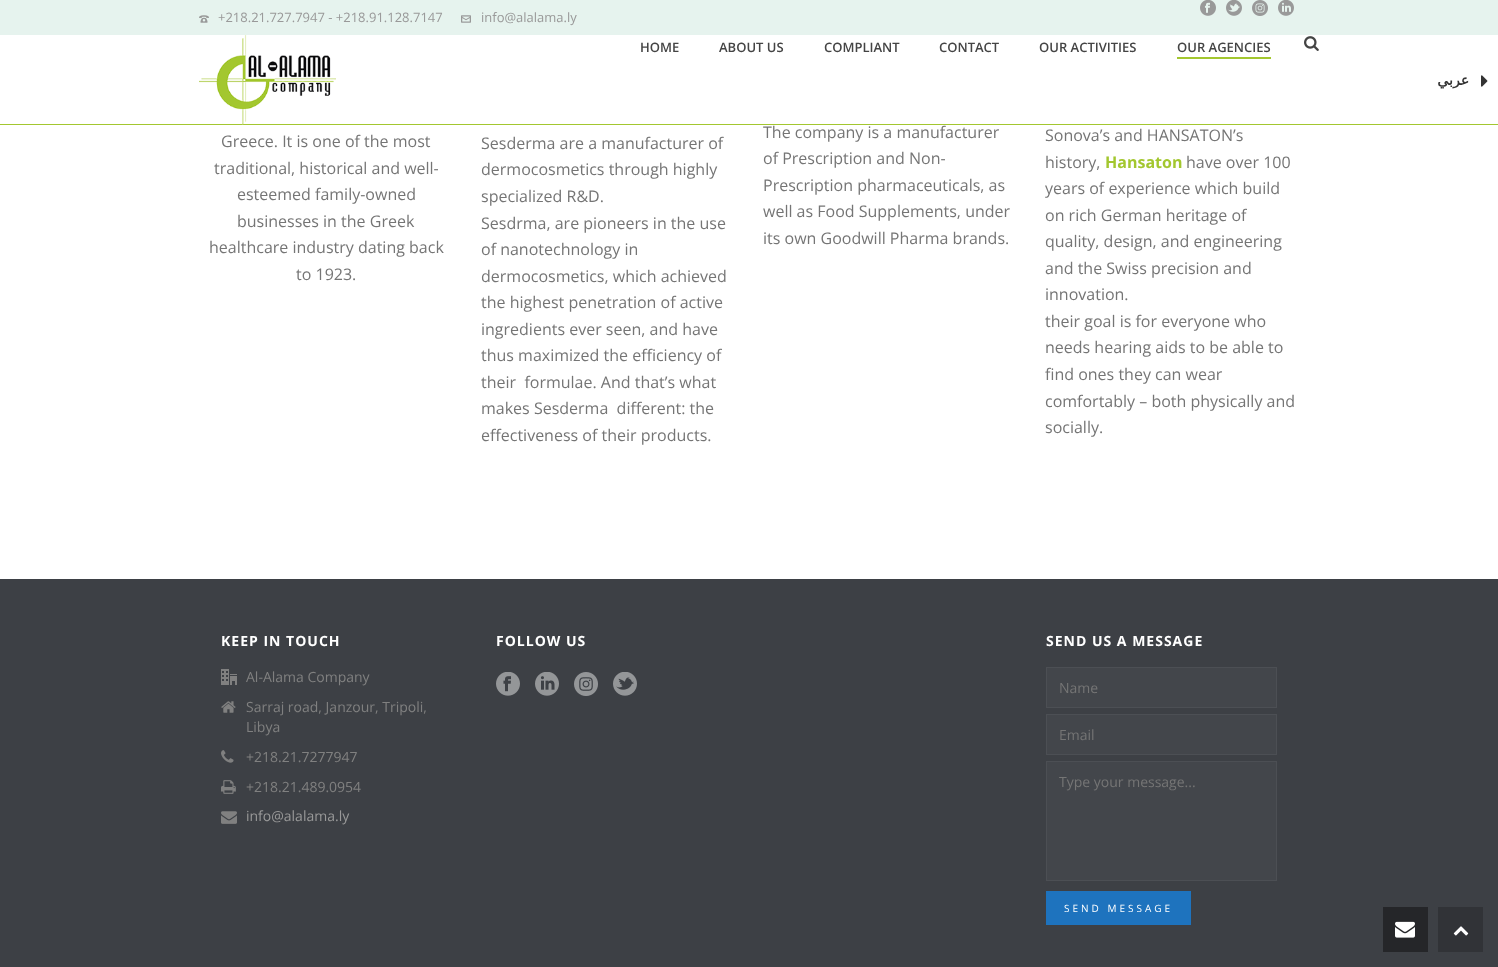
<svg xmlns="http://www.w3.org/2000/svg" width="1498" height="967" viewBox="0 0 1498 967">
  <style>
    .t1 { font: 13px Open Sans; fill: #999; }
    .t2 { font: 600 13px Open Sans; fill: #444; }
    .t3 { font: bold 14px DejaVu Sans; direction: rtl; fill: #333; }
    .t4 { font: 16px Open Sans; fill: #757575; }
    .t5 { font: bold 16px Open Sans; fill: #a3c72f; }
    .t6 { font: bold 14px Open Sans; letter-spacing: 1px; fill: #fff; }
    .t7 { font: 14px Open Sans; fill: #808080; }
    .t8 { font: 14px Open Sans; fill: #999; }
    .t9 { font: 14px Open Sans; fill: #757575; }
    .t10 { font: 10px Open Sans; letter-spacing: 3px; fill: #fff; }
  </style>
  <rect width="100%" height="100%" fill="#fff"/>
  <rect x="0" y="0" width="1498" height="35" fill="#e6f3ee"/>
  <image x="1200" y="0" width="16" height="16" href="images/1.png"/>
  <image x="1226" y="0" width="16" height="16" href="images/2.png"/>
  <image x="1252" y="0" width="16" height="16" href="images/3.png"/>
  <image x="1278" y="0" width="16" height="16" href="images/4.png"/>
  <image x="199" y="15" width="10" height="8" href="images/5.png"/>
  <text x="218" y="22" class="t1">+218.21.727.7947 - +218.91.128.7147</text>
  <image x="461" y="15" width="10" height="8" href="images/6.png"/>
  <text x="481" y="22" class="t1">info@alalama.ly</text>
  <rect x="0" y="124" width="1498" height="1" fill="#a3c72f"/>
  <image x="199" y="35" width="137" height="90" href="images/7.png"/>
  <text x="640" y="52" class="t2">HOME</text>
  <text x="719" y="52" class="t2">ABOUT US</text>
  <text x="824" y="52" class="t2">COMPLIANT</text>
  <text x="939" y="52" class="t2">CONTACT</text>
  <text x="1039" y="52" class="t2">OUR ACTIVITIES</text>
  <text x="1177" y="52" class="t2">OUR AGENCIES</text>
  <rect x="1177" y="57" width="94" height="2" fill="#a3c72f"/>
  <image x="1304" y="36" width="15" height="15" href="images/8.png"/>
  <text x="1469" y="85" class="t3">عربي</text>
  <image x="1481" y="75" width="7" height="12" href="images/9.png"/>
  <text x="221" y="147" class="t4">Greece. It is one of the most</text>
  <text x="214" y="174" class="t4">traditional, historical and well-</text>
  <text x="237" y="200" class="t4">esteemed family-owned</text>
  <text x="237" y="227" class="t4">businesses in the Greek</text>
  <text x="209" y="253" class="t4">healthcare industry dating back</text>
  <text x="296" y="280" class="t4">to 1923.</text>
  <text x="481" y="149" class="t4">Sesderma are a manufacturer of</text>
  <text x="481" y="175" class="t4">dermocosmetics through highly</text>
  <text x="481" y="202" class="t4">specialized R&amp;D.</text>
  <text x="481" y="229" class="t4">Sesdrma, are pioneers in the use</text>
  <text x="481" y="255" class="t4">of nanotechnology in</text>
  <text x="481" y="282" class="t4">dermocosmetics, which achieved</text>
  <text x="481" y="308" class="t4">the highest penetration of active</text>
  <text x="481" y="335" class="t4">ingredients ever seen, and have</text>
  <text x="481" y="361" class="t4">thus maximized the efficiency of</text>
  <text x="481" y="388" class="t4" xml:space="preserve">their  formulae. And that’s what</text>
  <text x="481" y="414" class="t4" xml:space="preserve">makes Sesderma  different: the</text>
  <text x="481" y="441" class="t4">effectiveness of their products.</text>
  <text x="763" y="138" class="t4">The company is a manufacturer</text>
  <text x="763" y="164" class="t4">of Prescription and Non-</text>
  <text x="763" y="191" class="t4">Prescription pharmaceuticals, as</text>
  <text x="763" y="217" class="t4">well as Food Supplements, under</text>
  <text x="763" y="244" class="t4">its own Goodwill Pharma brands.</text>
  <text x="1045" y="141" class="t4">Sonova’s and HANSATON’s</text>
  <text x="1045" y="168" class="t4">history,</text>
  <text x="1105" y="168" class="t5">Hansaton</text>
  <text x="1186" y="168" class="t4">have over 100</text>
  <text x="1045" y="194" class="t4">years of experience which build</text>
  <text x="1045" y="221" class="t4">on rich German heritage of</text>
  <text x="1045" y="247" class="t4">quality, design, and engineering</text>
  <text x="1045" y="274" class="t4">and the Swiss precision and</text>
  <text x="1045" y="300" class="t4">innovation.</text>
  <text x="1045" y="327" class="t4">their goal is for everyone who</text>
  <text x="1045" y="353" class="t4">needs hearing aids to be able to</text>
  <text x="1045" y="380" class="t4">find ones they can wear</text>
  <text x="1045" y="407" class="t4">comfortably – both physically and</text>
  <text x="1045" y="433" class="t4">socially.</text>
  <rect x="0" y="579" width="1498" height="388" fill="#3d4045"/>
  <text x="221" y="646" class="t6">KEEP IN TOUCH</text>
  <image x="221" y="669" width="16" height="16" href="images/10.png"/>
  <text x="246" y="682" class="t7">Al-Alama Company</text>
  <image x="221" y="701" width="15" height="12" href="images/11.png"/>
  <text x="246" y="712" class="t7">Sarraj road, Janzour, Tripoli,</text>
  <text x="246" y="732" class="t7">Libya</text>
  <image x="221" y="750" width="13" height="13" href="images/12.png"/>
  <text x="246" y="762" class="t7">+218.21.7277947</text>
  <image x="221" y="780" width="15" height="14" href="images/13.png"/>
  <text x="246" y="792" class="t7">+218.21.489.0954</text>
  <image x="221" y="811" width="16" height="13" href="images/14.png"/>
  <text x="246" y="821" class="t8">info@alalama.ly</text>
  <text x="496" y="646" class="t6">FOLLOW US</text>
  <image x="496" y="672" width="24" height="24" href="images/15.png"/>
  <image x="535" y="672" width="24" height="24" href="images/16.png"/>
  <image x="574" y="672" width="24" height="24" href="images/17.png"/>
  <image x="613" y="672" width="24" height="24" href="images/18.png"/>
  <text x="1046" y="646" class="t6">SEND US A MESSAGE</text>
  <rect x="1046.5" y="667.5" width="230" height="40" fill="#43464b" stroke="#4c4f54"/>
  <text x="1059" y="693" class="t9">Name</text>
  <rect x="1046.5" y="714.5" width="230" height="40" fill="#43464b" stroke="#4c4f54"/>
  <text x="1059" y="740" class="t9">Email</text>
  <rect x="1046.5" y="761.5" width="230" height="119" fill="#43464b" stroke="#4c4f54"/>
  <text x="1059" y="787" class="t9">Type your message...</text>
  <rect x="1046" y="891" width="145" height="34" fill="#1e73be"/>
  <text x="1064" y="912" class="t10">SEND MESSAGE</text>
  <rect x="1383" y="907" width="45" height="45" fill="#252629"/>
  <image x="1395" y="921" width="20" height="17" href="images/19.png"/>
  <rect x="1438" y="907" width="45" height="45" fill="#313337"/>
  <image x="1453" y="926" width="16" height="10" href="images/20.png"/>
</svg>
